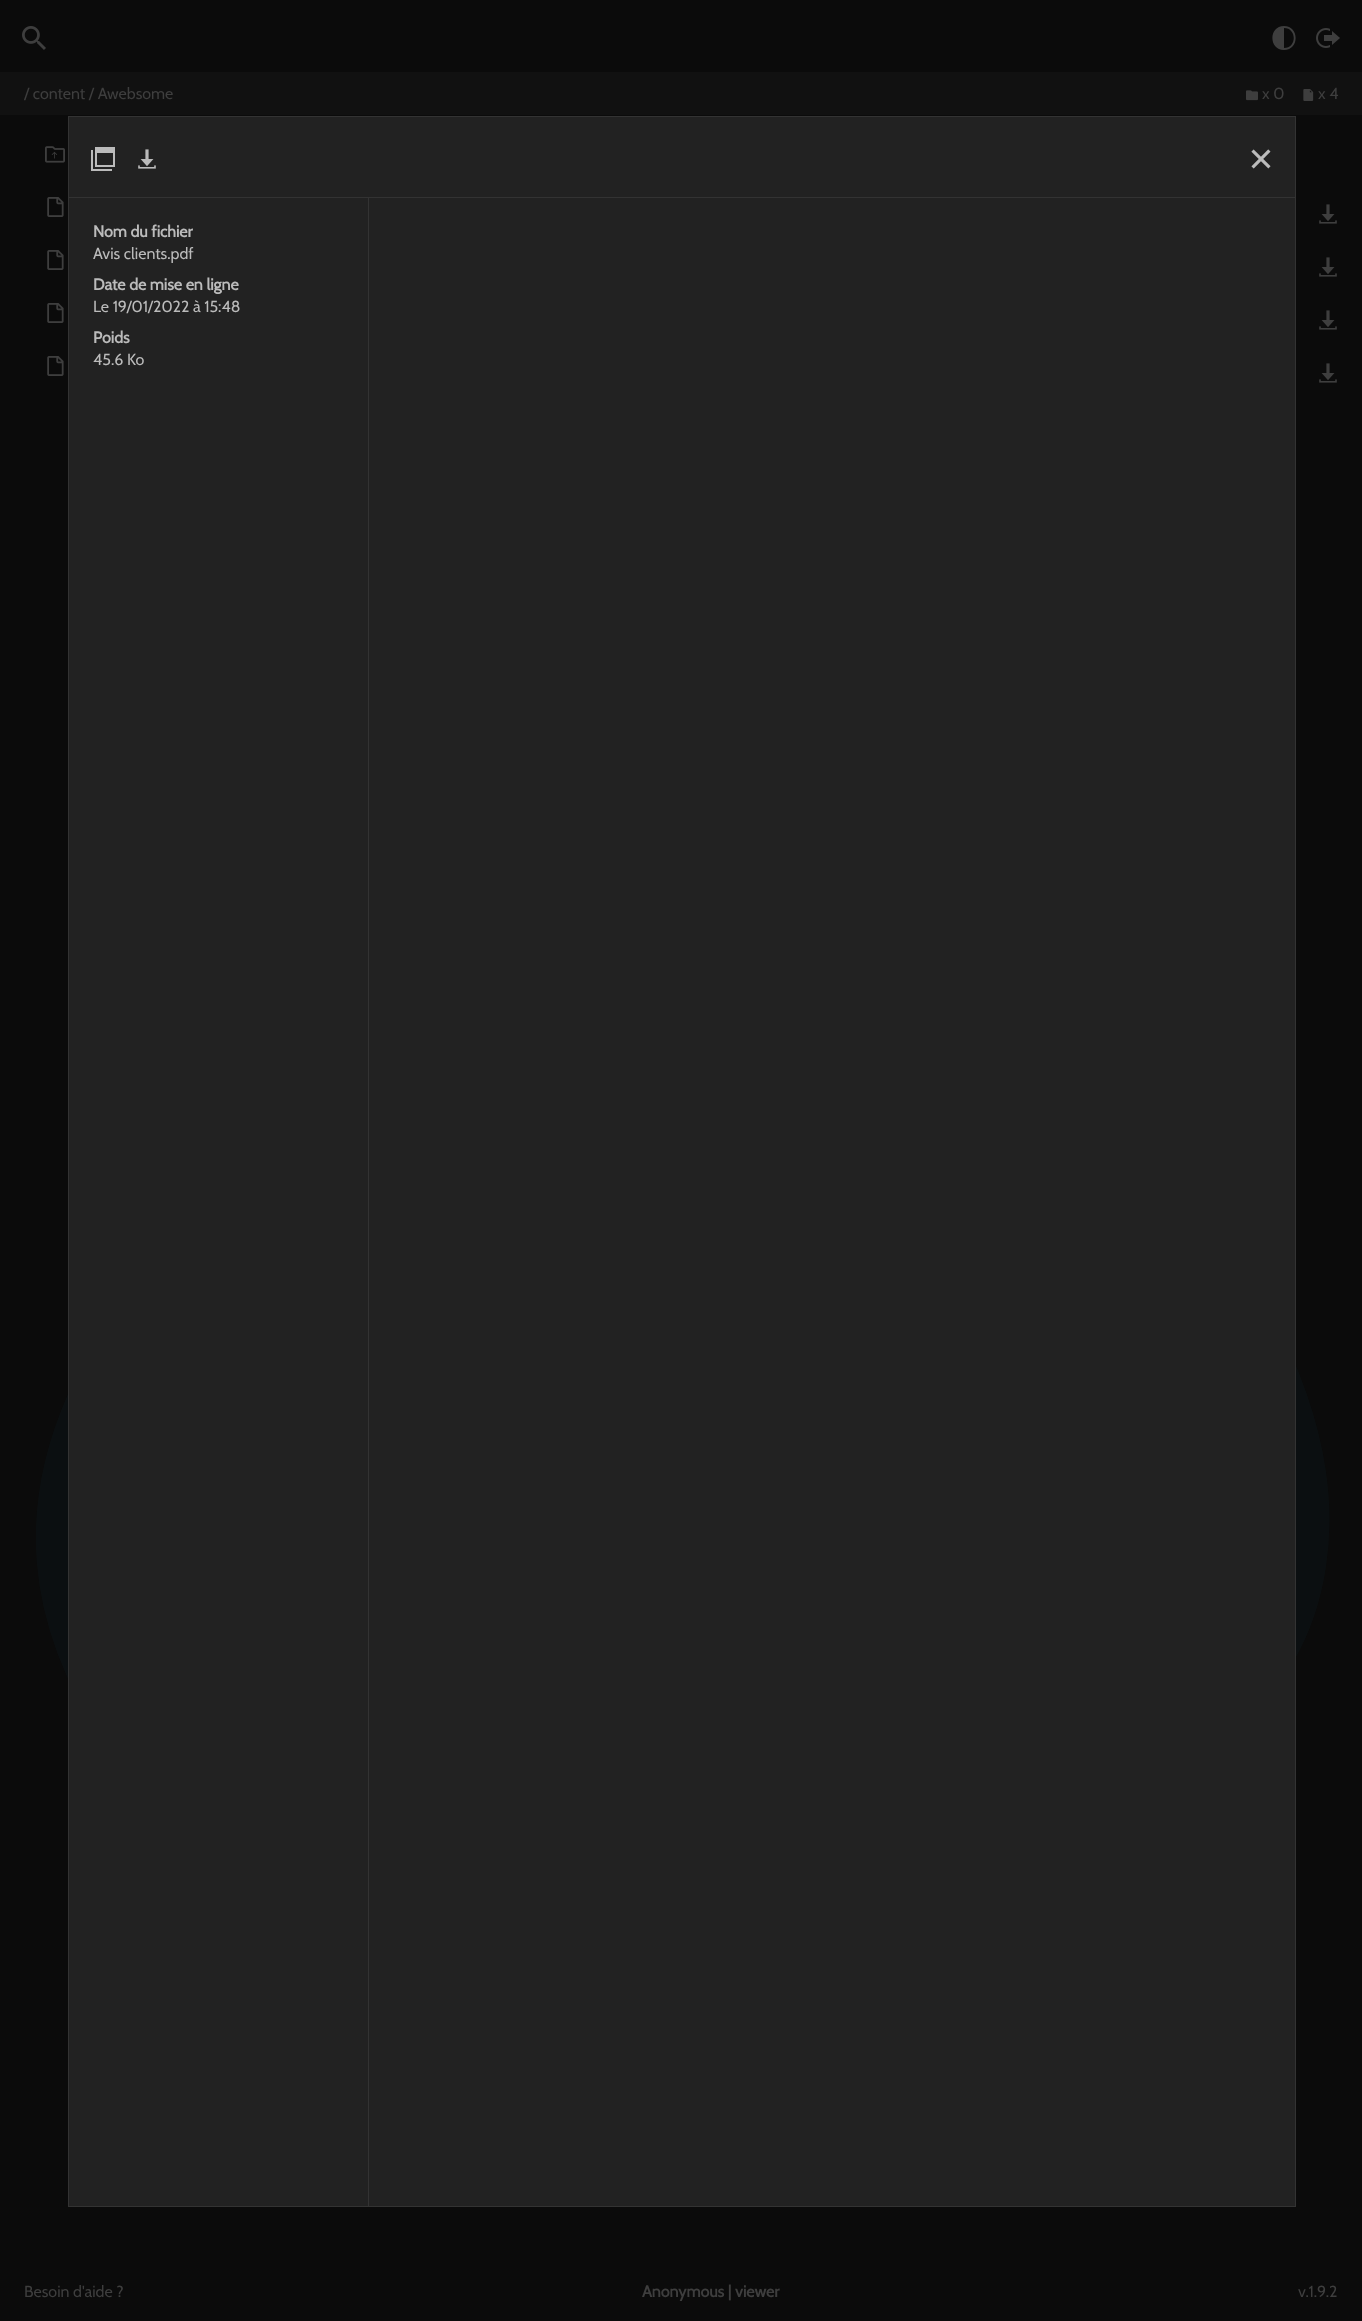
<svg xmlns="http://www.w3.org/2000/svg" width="1362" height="2321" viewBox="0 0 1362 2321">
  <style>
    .t1 { font: 16px Cabin; fill: #3e3e3e; }
    .t2 { font: bold 16px Cabin; fill: #bbb; }
    .t3 { font: 16px Cabin; fill: #bbb; }
    .t4 { font: bold 16px Cabin; fill: #3e3e3e; }
  </style>
  <rect width="100%" height="100%" fill="#0b0b0b"/>
  <image x="36" y="1367" width="1294" height="311" href="images/1.png"/>
  <image x="22" y="26" width="24" height="24" href="images/2.png"/>
  <path d="M1284 28C1297 28 1297 48 1284 48ZM1284 26C1268.5 26 1268.5 50 1284 50C1299.5 50 1299.5 26 1284 26Z" fill="#3e3e3e"/>
  <image x="1316" y="28" width="24" height="20" href="images/3.png"/>
  <rect x="0" y="72" width="1362" height="43" fill="#111"/>
  <text x="24" y="99" class="t1">/ content / Awebsome</text>
  <image x="1246" y="90" width="12" height="11" href="images/4.png"/>
  <text x="1262" y="99" class="t1">x 0</text>
  <image x="1303" y="89" width="11" height="12" href="images/5.png"/>
  <text x="1318" y="99" class="t1">x 4</text>
  <image x="45" y="146" width="20" height="17" href="images/6.png"/>
  <image x="47" y="197" width="17" height="20" href="images/7.png"/>
  <image x="1319" y="204" width="18" height="20" href="images/8.png"/>
  <image x="47" y="250" width="17" height="20" href="images/7.png"/>
  <image x="1319" y="257" width="18" height="20" href="images/8.png"/>
  <image x="47" y="303" width="17" height="20" href="images/7.png"/>
  <image x="1319" y="310" width="18" height="20" href="images/8.png"/>
  <image x="47" y="356" width="17" height="20" href="images/7.png"/>
  <image x="1319" y="363" width="18" height="20" href="images/8.png"/>
  <rect x="68.5" y="116.5" width="1227" height="2090" fill="#222" stroke="#333"/>
  <rect x="69" y="197" width="1226" height="1" fill="#333"/>
  <image x="91" y="147" width="24" height="24" href="images/9.png"/>
  <image x="138" y="149" width="18" height="20" href="images/10.png"/>
  <image x="1251" y="149" width="20" height="20" href="images/11.png"/>
  <rect x="368" y="198" width="1" height="2008" fill="#333"/>
  <text x="93" y="237" class="t2">Nom du fichier</text>
  <text x="93" y="259" class="t3">Avis clients.pdf</text>
  <text x="93" y="290" class="t2">Date de mise en ligne</text>
  <text x="93" y="312" class="t3">Le 19/01/2022 à 15:48</text>
  <text x="93" y="343" class="t2">Poids</text>
  <text x="93" y="365" class="t3">45.6 Ko</text>
  <text x="24" y="2297" class="t1">Besoin d'aide ?</text>
  <text x="642" y="2297" class="t4">Anonymous | viewer</text>
  <text x="1298" y="2297" class="t1">v.1.9.2</text>
</svg>
